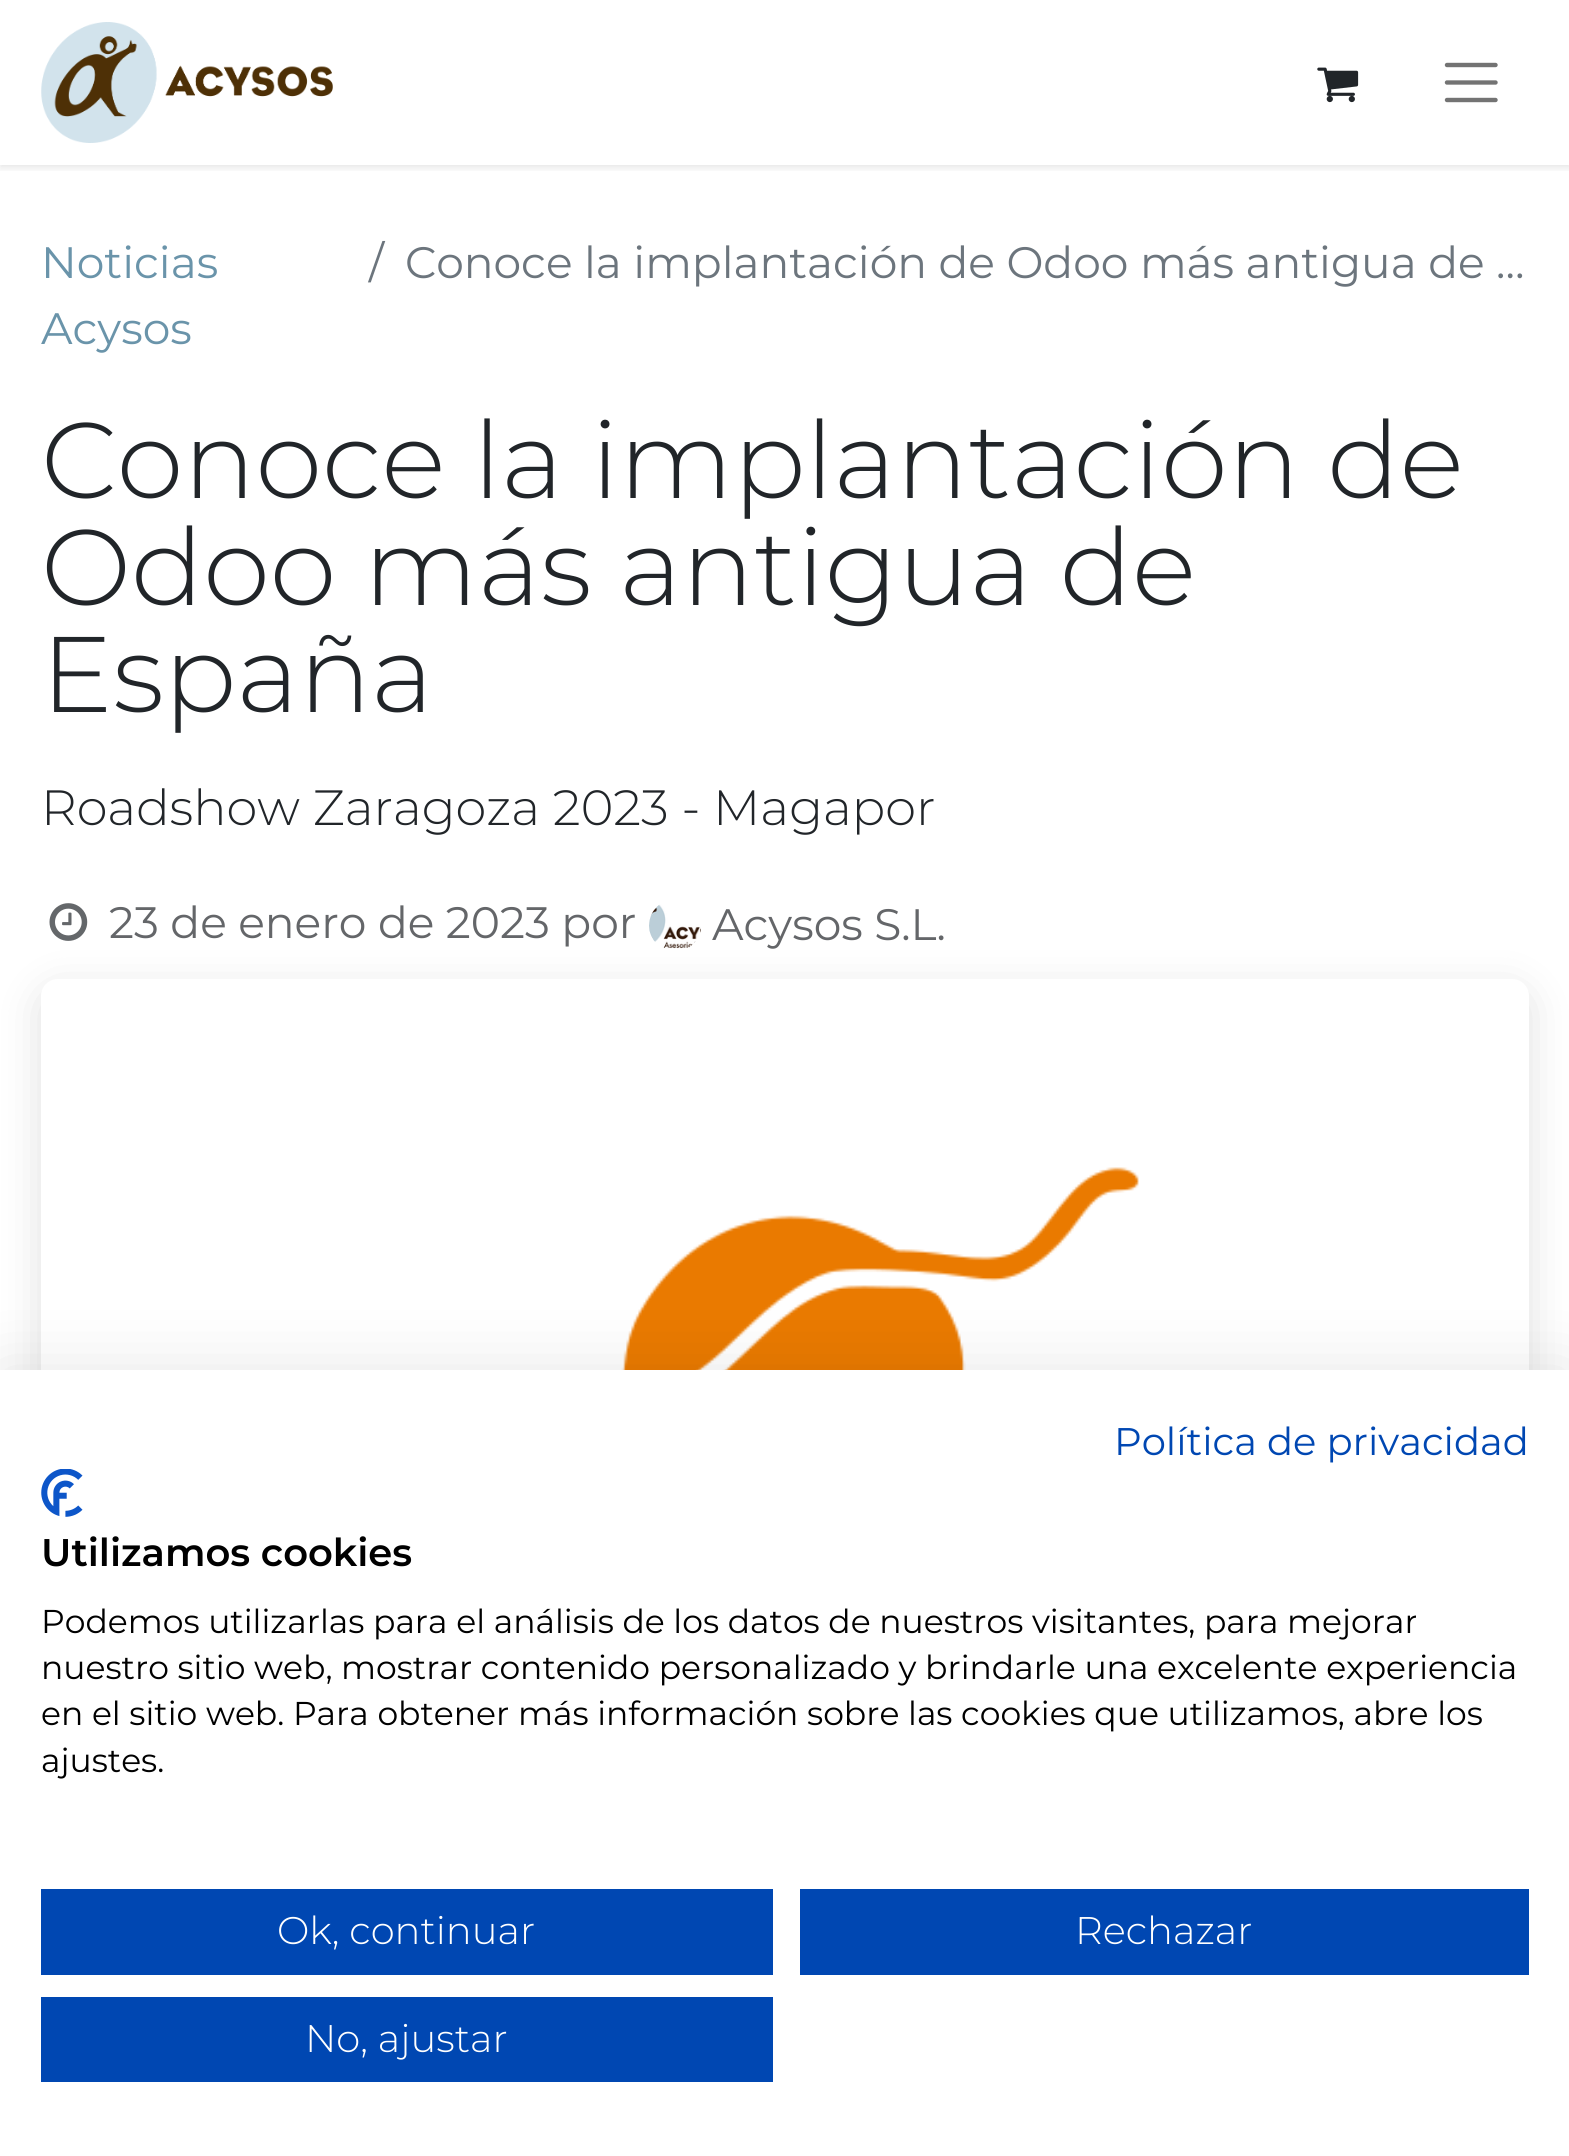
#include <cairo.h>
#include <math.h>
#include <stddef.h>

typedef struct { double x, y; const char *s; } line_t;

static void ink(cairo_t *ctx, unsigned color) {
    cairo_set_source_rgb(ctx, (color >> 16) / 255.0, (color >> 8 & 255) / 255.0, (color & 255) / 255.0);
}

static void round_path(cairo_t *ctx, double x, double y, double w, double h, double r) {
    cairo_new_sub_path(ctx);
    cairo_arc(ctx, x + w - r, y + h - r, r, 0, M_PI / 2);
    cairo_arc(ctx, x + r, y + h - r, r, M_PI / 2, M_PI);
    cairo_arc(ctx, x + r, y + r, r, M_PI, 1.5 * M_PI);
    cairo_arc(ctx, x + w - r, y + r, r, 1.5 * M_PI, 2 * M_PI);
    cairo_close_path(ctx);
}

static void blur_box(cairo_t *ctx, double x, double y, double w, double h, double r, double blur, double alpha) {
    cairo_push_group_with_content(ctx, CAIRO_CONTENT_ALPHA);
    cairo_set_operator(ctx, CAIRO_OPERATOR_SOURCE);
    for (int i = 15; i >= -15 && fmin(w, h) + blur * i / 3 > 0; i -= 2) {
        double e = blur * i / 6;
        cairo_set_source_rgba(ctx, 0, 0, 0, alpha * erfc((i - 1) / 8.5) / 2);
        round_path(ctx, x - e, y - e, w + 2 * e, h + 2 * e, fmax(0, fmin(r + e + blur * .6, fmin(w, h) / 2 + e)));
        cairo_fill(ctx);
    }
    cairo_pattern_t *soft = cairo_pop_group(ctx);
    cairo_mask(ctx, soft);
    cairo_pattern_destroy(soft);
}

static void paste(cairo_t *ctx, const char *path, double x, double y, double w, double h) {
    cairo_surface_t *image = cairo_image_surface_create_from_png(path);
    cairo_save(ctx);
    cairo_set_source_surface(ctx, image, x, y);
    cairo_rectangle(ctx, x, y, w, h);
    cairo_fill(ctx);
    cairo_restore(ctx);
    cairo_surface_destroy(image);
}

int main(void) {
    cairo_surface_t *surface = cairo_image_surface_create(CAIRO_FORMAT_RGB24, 1569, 2156);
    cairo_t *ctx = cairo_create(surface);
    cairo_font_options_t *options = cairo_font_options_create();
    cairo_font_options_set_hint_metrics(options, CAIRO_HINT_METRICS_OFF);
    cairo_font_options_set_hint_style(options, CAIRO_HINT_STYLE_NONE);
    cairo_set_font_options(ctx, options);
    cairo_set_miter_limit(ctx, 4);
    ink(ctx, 0xFFFFFF);
    cairo_paint(ctx);
    cairo_save(ctx);
    cairo_rectangle(ctx, 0, 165, 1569, 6);
    cairo_clip(ctx);
    ink(ctx, 0x000000);
    blur_box(ctx, 0, 3, 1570, 165, 0, 4, 0.1);
    cairo_restore(ctx);
    paste(ctx, "media/1.png", 41, 22, 292, 121);
    paste(ctx, "media/2.png", 1317, 67, 42, 36);
    cairo_new_path(ctx);
    cairo_move_to(ctx, 1447, 65);
    cairo_line_to(ctx, 1495.5, 65);
    cairo_move_to(ctx, 1447, 82.5);
    cairo_line_to(ctx, 1495.5, 82.5);
    cairo_move_to(ctx, 1447, 100);
    cairo_line_to(ctx, 1495.5, 100);
    ink(ctx, 0x737373);
    cairo_set_line_width(ctx, 4.4);
    cairo_set_line_cap(ctx, CAIRO_LINE_CAP_ROUND);
    cairo_stroke(ctx);
    cairo_select_font_face(ctx, "Montserrat", CAIRO_FONT_SLANT_NORMAL, CAIRO_FONT_WEIGHT_NORMAL);
    cairo_set_font_size(ctx, 44);
    ink(ctx, 0x6A94AA);
    cairo_move_to(ctx, 41, 278);
    cairo_show_text(ctx, "Noticias");
    cairo_move_to(ctx, 41, 344);
    cairo_show_text(ctx, "Acysos");
    ink(ctx, 0x6C757D);
    cairo_move_to(ctx, 369, 278);
    cairo_show_text(ctx, "/");
    cairo_move_to(ctx, 405, 278);
    cairo_show_text(ctx, "Conoce la implantación de Odoo más antigua de …");
    cairo_select_font_face(ctx, "Montserrat Light", CAIRO_FONT_SLANT_NORMAL, CAIRO_FONT_WEIGHT_NORMAL);
    cairo_set_font_size(ctx, 107.25);
    ink(ctx, 0x212529);
    {
        static const line_t items[] = {
            {41, 498, "Conoce la implantación de"},
            {41, 605, "Odoo más antigua de"},
            {41, 712, "España"},
        };
        for (size_t i = 0; i < sizeof items / sizeof *items; i++) {
            cairo_move_to(ctx, items[i].x, items[i].y);
            cairo_show_text(ctx, items[i].s);
        }
    }
    cairo_set_font_size(ctx, 49.5);
    cairo_move_to(ctx, 41, 825);
    cairo_show_text(ctx, "Roadshow Zaragoza 2023 - Magapor");
    paste(ctx, "media/3.png", 49, 903, 39, 38);
    cairo_select_font_face(ctx, "Montserrat", CAIRO_FONT_SLANT_NORMAL, CAIRO_FONT_WEIGHT_NORMAL);
    cairo_set_font_size(ctx, 44);
    ink(ctx, 0x646669);
    cairo_move_to(ctx, 109, 938);
    cairo_show_text(ctx, "23 de enero de 2023 por");
    paste(ctx, "media/4.png", 649, 904, 52, 45);
    cairo_move_to(ctx, 712, 940);
    cairo_show_text(ctx, "Acysos S.L.");
    ink(ctx, 0x000000);
    blur_box(ctx, 41, 990, 1488, 864, 17, 22, 0.12);
    ink(ctx, 0xFFFFFF);
    round_path(ctx, 41, 979, 1488, 864, 17);
    cairo_fill(ctx);
    paste(ctx, "media/5.png", 621, 1167, 518, 203);
    ink(ctx, 0x000000);
    blur_box(ctx, 0, 1370, 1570, 786, 0, 33, 0.1);
    ink(ctx, 0xFFFFFF);
    cairo_rectangle(ctx, 0, 1370, 1569, 786);
    cairo_fill(ctx);
    cairo_set_font_size(ctx, 38.5);
    ink(ctx, 0x0047B2);
    cairo_move_to(ctx, 1114, 1455);
    cairo_show_text(ctx, "Política de privacidad");
    paste(ctx, "media/6.png", 41, 1469, 42, 48);
    cairo_select_font_face(ctx, "Montserrat SemiBold", CAIRO_FONT_SLANT_NORMAL, CAIRO_FONT_WEIGHT_NORMAL);
    ink(ctx, 0x000000);
    cairo_move_to(ctx, 41, 1566);
    cairo_show_text(ctx, "Utilizamos cookies");
    cairo_select_font_face(ctx, "Montserrat", CAIRO_FONT_SLANT_NORMAL, CAIRO_FONT_WEIGHT_NORMAL);
    cairo_set_font_size(ctx, 33);
    {
        static const line_t items[] = {
            {41, 1633, "Podemos utilizarlas para el análisis de los datos de nuestros visitantes, para mejorar"},
            {41, 1679, "nuestro sitio web, mostrar contenido personalizado y brindarle una excelente experiencia"},
            {41, 1725, "en el sitio web. Para obtener más información sobre las cookies que utilizamos, abre los"},
            {41, 1772, "ajustes."},
        };
        for (size_t i = 0; i < sizeof items / sizeof *items; i++) {
            cairo_move_to(ctx, items[i].x, items[i].y);
            cairo_show_text(ctx, items[i].s);
        }
    }
    ink(ctx, 0x0047B2);
    cairo_rectangle(ctx, 41, 1889, 732, 86);
    cairo_fill(ctx);
    cairo_select_font_face(ctx, "Montserrat Light", CAIRO_FONT_SLANT_NORMAL, CAIRO_FONT_WEIGHT_NORMAL);
    cairo_set_font_size(ctx, 38.5);
    ink(ctx, 0xFFFFFF);
    cairo_move_to(ctx, 277, 1944);
    cairo_show_text(ctx, "Ok, continuar");
    ink(ctx, 0x0047B2);
    cairo_rectangle(ctx, 800, 1889, 729, 86);
    cairo_fill(ctx);
    ink(ctx, 0xFFFFFF);
    cairo_move_to(ctx, 1075, 1944);
    cairo_show_text(ctx, "Rechazar");
    ink(ctx, 0x0047B2);
    cairo_rectangle(ctx, 41, 1997, 732, 85);
    cairo_fill(ctx);
    ink(ctx, 0xFFFFFF);
    cairo_move_to(ctx, 305, 2052);
    cairo_show_text(ctx, "No, ajustar");
    cairo_surface_write_to_png(surface, "image.png");
    cairo_font_options_destroy(options);
    cairo_destroy(ctx);
    cairo_surface_destroy(surface);
    return 0;
}
